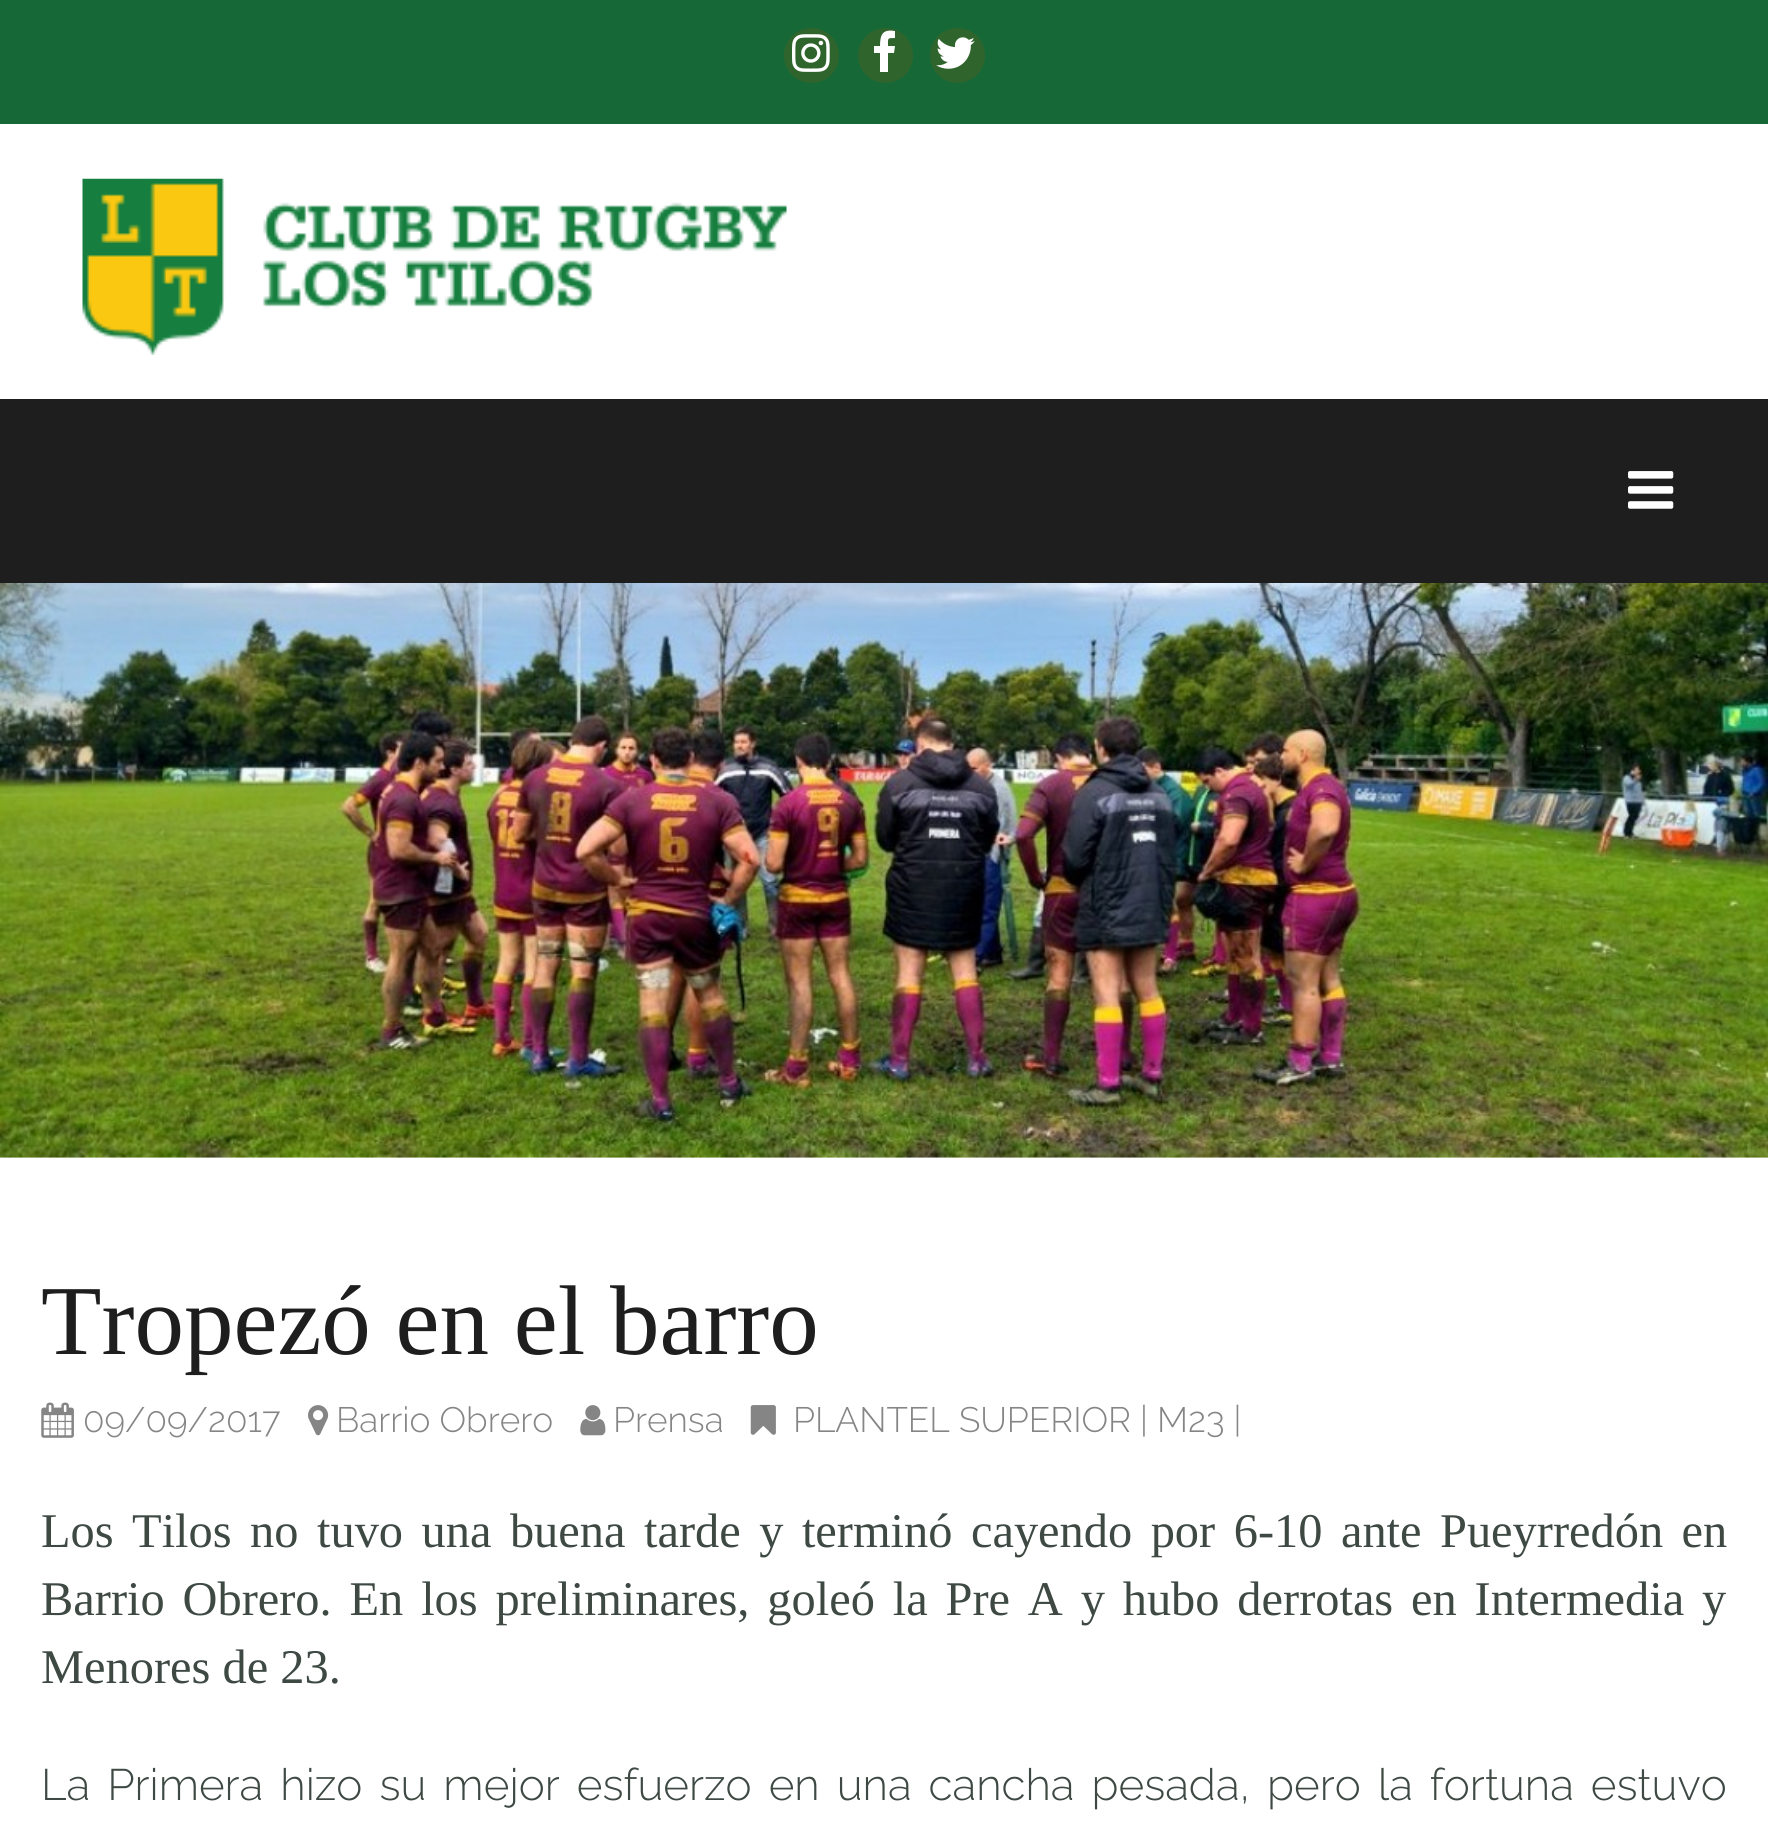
#include <cairo.h>
#include <math.h>
#include <stddef.h>


static void ink(cairo_t *ctx, unsigned color) {
    cairo_set_source_rgb(ctx, (color >> 16) / 255.0, (color >> 8 & 255) / 255.0, (color & 255) / 255.0);
}

static void write_spaced(cairo_t *ctx, double x, double y, const char *s, double letter, double word) {
    cairo_move_to(ctx, x, y);
    while (*s) {
        char ch[5] = {0};
        int n = 0;
        do ch[n++] = *s++; while ((*s & 0xC0) == 0x80);
        cairo_show_text(ctx, ch);
        cairo_rel_move_to(ctx, letter + word * (*ch == ' '), 0);
    }
}

static void paste(cairo_t *ctx, const char *path, double x, double y, double w, double h) {
    cairo_surface_t *image = cairo_image_surface_create_from_png(path);
    cairo_save(ctx);
    cairo_set_source_surface(ctx, image, x, y);
    cairo_rectangle(ctx, x, y, w, h);
    cairo_fill(ctx);
    cairo_restore(ctx);
    cairo_surface_destroy(image);
}

int main(void) {
    cairo_surface_t *surface = cairo_image_surface_create(CAIRO_FORMAT_RGB24, 1768, 1848);
    cairo_t *ctx = cairo_create(surface);
    cairo_font_options_t *options = cairo_font_options_create();
    cairo_font_options_set_hint_metrics(options, CAIRO_HINT_METRICS_OFF);
    cairo_font_options_set_hint_style(options, CAIRO_HINT_STYLE_NONE);
    cairo_set_font_options(ctx, options);
    cairo_set_miter_limit(ctx, 4);
    ink(ctx, 0xFFFFFF);
    cairo_paint(ctx);
    ink(ctx, 0x166936);
    cairo_rectangle(ctx, 0, 0, 1768, 124);
    cairo_fill(ctx);
    ink(ctx, 0x30642D);
    cairo_arc(ctx, 811.5, 55.5, 27.5, 0, 2 * M_PI);
    cairo_fill(ctx);
    paste(ctx, "media/1.png", 792, 34, 38, 38);
    cairo_arc(ctx, 885.5, 55.5, 27.5, 0, 2 * M_PI);
    cairo_fill(ctx);
    ink(ctx, 0xFFFFFF);
    cairo_new_path(ctx);
    cairo_move_to(ctx, 895, 31);
    cairo_curve_to(ctx, 883, 29, 880, 34, 880, 46);
    cairo_line_to(ctx, 874, 46);
    cairo_line_to(ctx, 874, 53);
    cairo_line_to(ctx, 880, 53);
    cairo_line_to(ctx, 880, 72);
    cairo_line_to(ctx, 888, 72);
    cairo_line_to(ctx, 888, 53);
    cairo_line_to(ctx, 894, 53);
    cairo_line_to(ctx, 895, 46);
    cairo_line_to(ctx, 888, 46);
    cairo_curve_to(ctx, 888, 38, 887, 38, 895, 38);
    cairo_close_path(ctx);
    cairo_fill(ctx);
    ink(ctx, 0x30642D);
    cairo_arc(ctx, 957.5, 55.5, 27.5, 0, 2 * M_PI);
    cairo_fill(ctx);
    paste(ctx, "media/2.png", 936, 37, 39, 32);
    paste(ctx, "media/3.png", 82, 178, 705, 177);
    ink(ctx, 0x1F1E1E);
    cairo_rectangle(ctx, 0, 399, 1768, 184);
    cairo_fill(ctx);
    paste(ctx, "media/4.png", 1628, 471, 46, 38);
    paste(ctx, "media/5.png", 0, 583, 1768, 575);
    cairo_select_font_face(ctx, "Liberation Serif", CAIRO_FONT_SLANT_NORMAL, CAIRO_FONT_WEIGHT_NORMAL);
    cairo_set_font_size(ctx, 99);
    cairo_move_to(ctx, 41, 1354);
    cairo_show_text(ctx, "Tropezó en el barro");
    paste(ctx, "media/6.png", 41, 1402, 33, 36);
    cairo_select_font_face(ctx, "Raleway Light", CAIRO_FONT_SLANT_NORMAL, CAIRO_FONT_WEIGHT_NORMAL);
    cairo_set_font_size(ctx, 35.25);
    ink(ctx, 0x868585);
    cairo_move_to(ctx, 83, 1432);
    cairo_show_text(ctx, "09/09/2017");
    paste(ctx, "media/7.png", 308, 1405, 21, 31);
    cairo_move_to(ctx, 336, 1432);
    cairo_show_text(ctx, "Barrio Obrero");
    paste(ctx, "media/8.png", 580, 1405, 26, 31);
    cairo_move_to(ctx, 613, 1432);
    cairo_show_text(ctx, "Prensa");
    paste(ctx, "media/9.png", 750, 1405, 26, 30);
    cairo_move_to(ctx, 793, 1432);
    cairo_show_text(ctx, "PLANTEL SUPERIOR | M23 |");
    cairo_select_font_face(ctx, "Liberation Serif", CAIRO_FONT_SLANT_NORMAL, CAIRO_FONT_WEIGHT_NORMAL);
    cairo_set_font_size(ctx, 48.4);
    ink(ctx, 0x3D4942);
    write_spaced(ctx, 41, 1547, "Los Tilos no tuvo una buena tarde y terminó cayendo por 6-10 ante Pueyrredón en", 0, 6.4);
    write_spaced(ctx, 41, 1615, "Barrio Obrero. En los preliminares, goleó la Pre A y hubo derrotas en Intermedia y", 0, 5.75);
    cairo_move_to(ctx, 41, 1683);
    cairo_show_text(ctx, "Menores de 23.");
    cairo_select_font_face(ctx, "Raleway Light", CAIRO_FONT_SLANT_NORMAL, CAIRO_FONT_WEIGHT_NORMAL);
    cairo_set_font_size(ctx, 44);
    write_spaced(ctx, 41, 1800, "La Primera hizo su mejor esfuerzo en una cancha pesada, pero la fortuna estuvo", 0, 5.75);
    cairo_surface_write_to_png(surface, "image.png");
    cairo_font_options_destroy(options);
    cairo_destroy(ctx);
    cairo_surface_destroy(surface);
    return 0;
}
